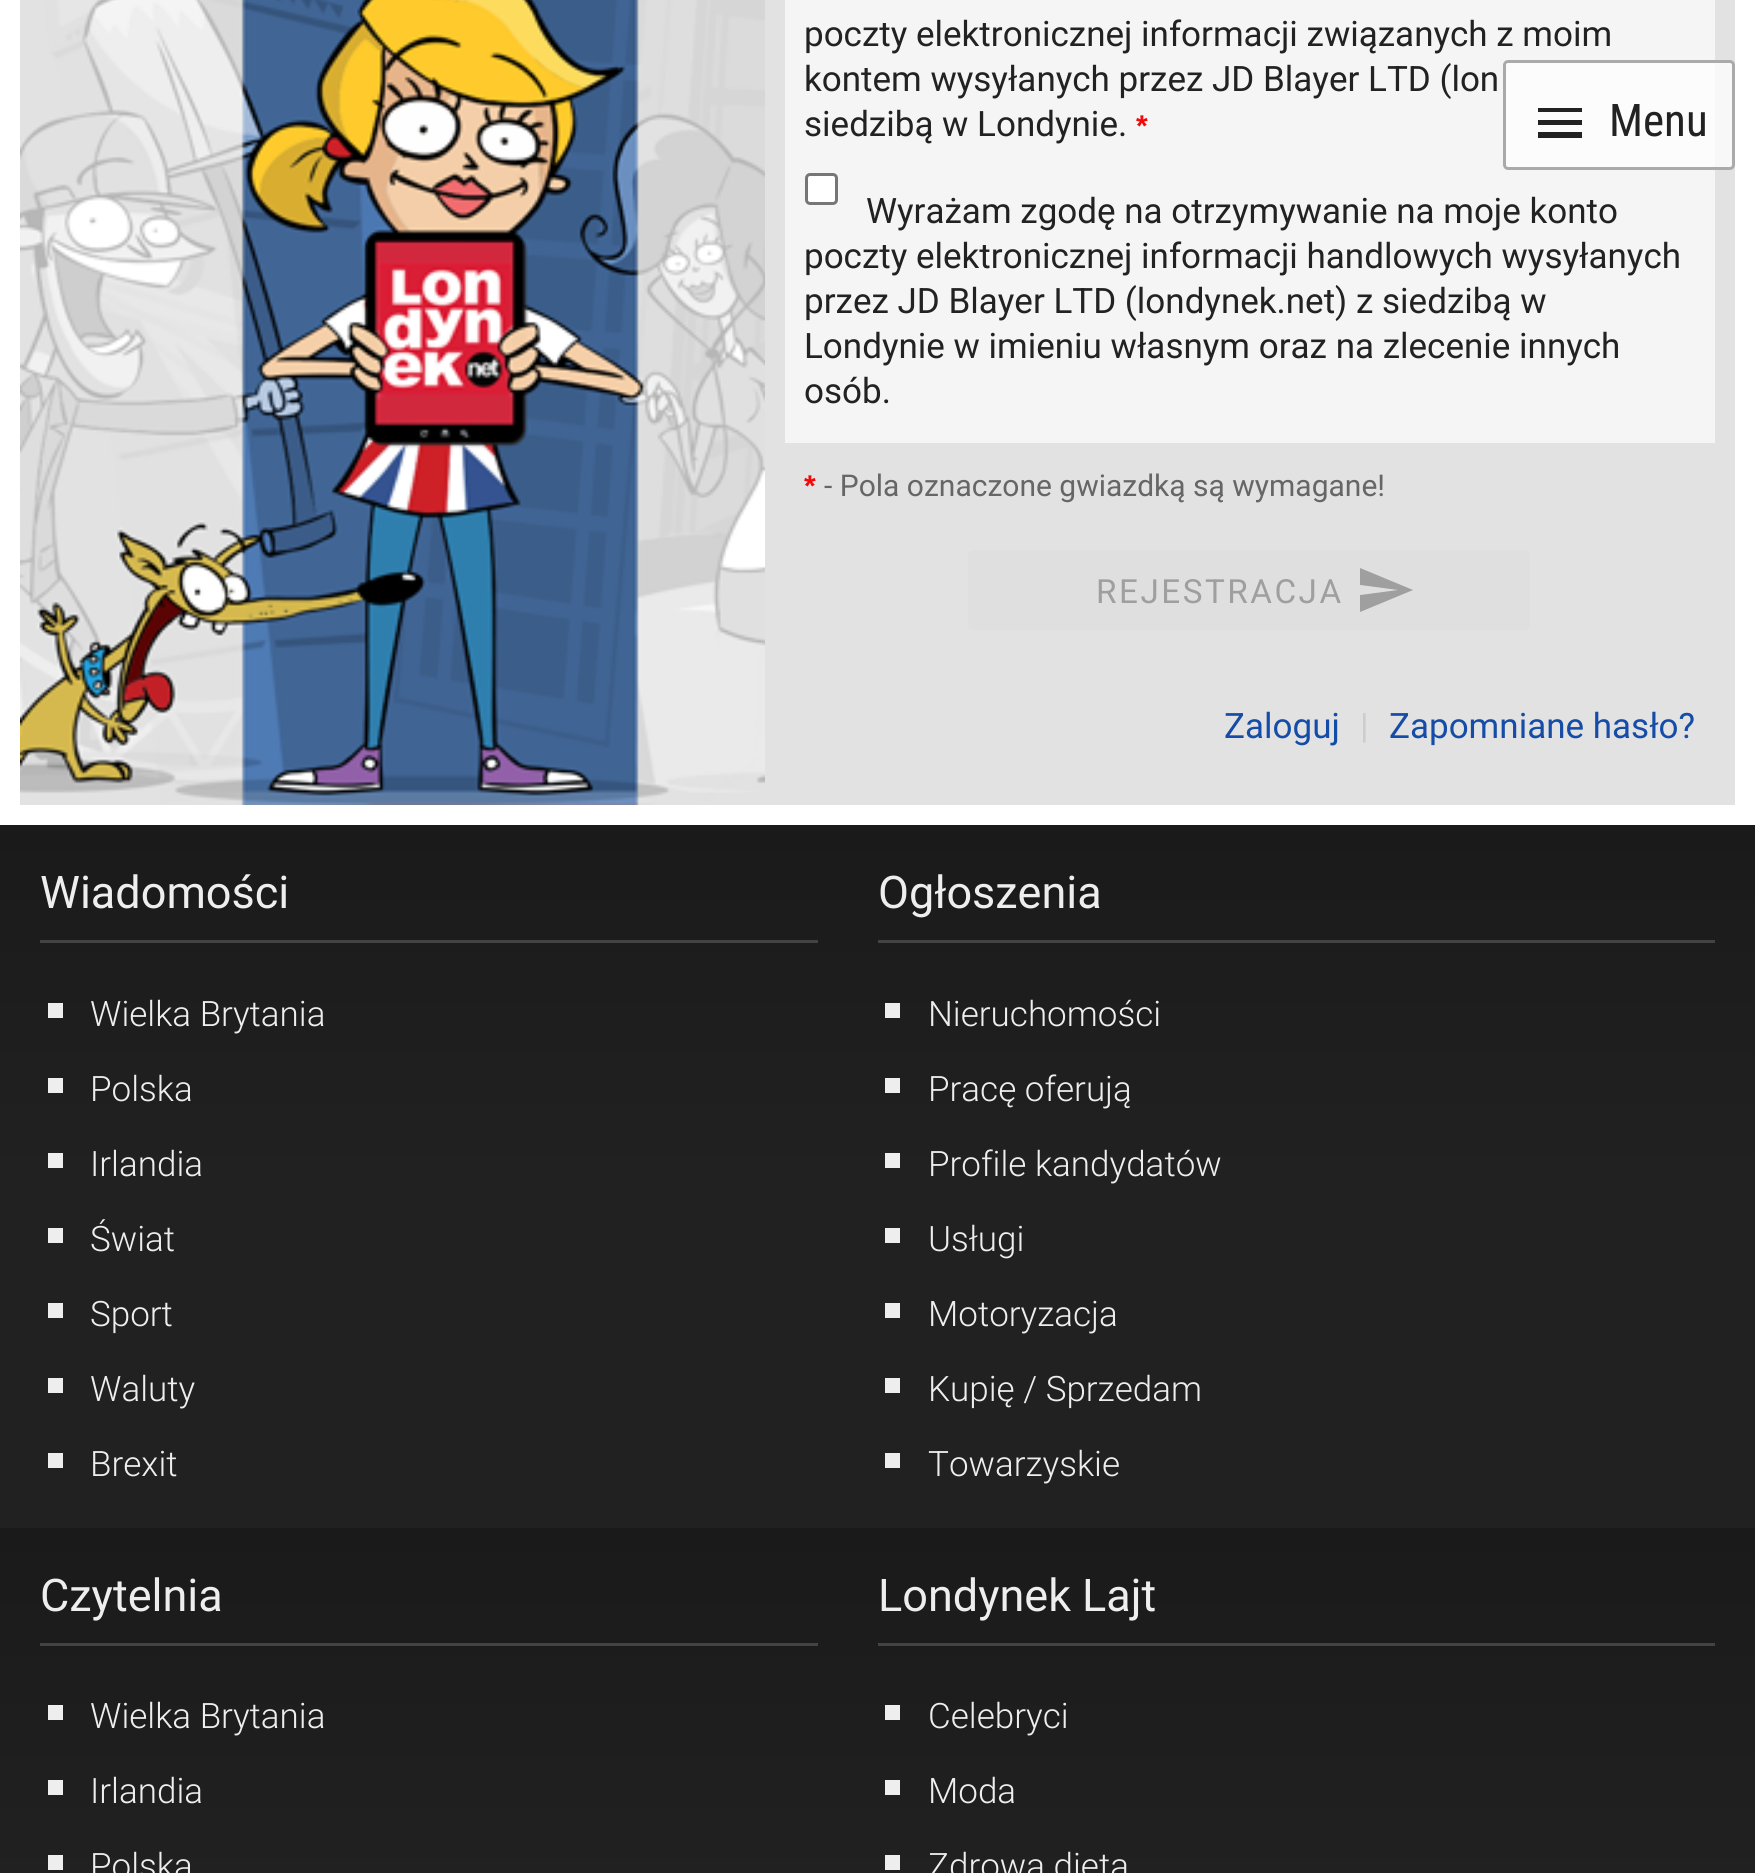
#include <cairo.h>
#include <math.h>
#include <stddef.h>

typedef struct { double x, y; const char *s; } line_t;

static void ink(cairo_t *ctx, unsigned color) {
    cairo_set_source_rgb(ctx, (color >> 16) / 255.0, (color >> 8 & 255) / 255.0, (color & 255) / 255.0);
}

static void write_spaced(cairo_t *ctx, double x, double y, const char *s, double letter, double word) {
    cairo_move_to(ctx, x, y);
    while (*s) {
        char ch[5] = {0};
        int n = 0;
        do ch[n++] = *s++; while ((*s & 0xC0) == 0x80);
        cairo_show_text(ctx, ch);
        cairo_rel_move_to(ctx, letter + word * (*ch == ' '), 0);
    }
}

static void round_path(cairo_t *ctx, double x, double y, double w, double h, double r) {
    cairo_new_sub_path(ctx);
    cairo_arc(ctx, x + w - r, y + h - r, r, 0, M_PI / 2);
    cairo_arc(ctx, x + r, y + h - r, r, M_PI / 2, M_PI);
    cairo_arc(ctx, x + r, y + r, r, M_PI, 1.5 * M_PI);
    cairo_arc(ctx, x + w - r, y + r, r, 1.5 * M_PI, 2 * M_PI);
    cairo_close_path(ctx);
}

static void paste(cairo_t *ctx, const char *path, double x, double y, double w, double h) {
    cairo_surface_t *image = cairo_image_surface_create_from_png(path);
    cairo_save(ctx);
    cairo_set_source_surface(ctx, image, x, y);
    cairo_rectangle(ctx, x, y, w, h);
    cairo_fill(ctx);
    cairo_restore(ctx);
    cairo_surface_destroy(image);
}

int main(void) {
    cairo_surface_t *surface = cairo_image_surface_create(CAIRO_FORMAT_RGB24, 1755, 1873);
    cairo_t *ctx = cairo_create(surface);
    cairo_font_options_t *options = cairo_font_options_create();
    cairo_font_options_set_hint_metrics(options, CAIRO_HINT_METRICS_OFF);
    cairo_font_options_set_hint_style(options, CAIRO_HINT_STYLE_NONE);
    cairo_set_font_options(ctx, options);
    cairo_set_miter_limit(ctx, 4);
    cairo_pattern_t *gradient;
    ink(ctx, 0xFFFFFF);
    cairo_paint(ctx);
    ink(ctx, 0xE2E2E2);
    cairo_rectangle(ctx, 765, 0, 970, 805);
    cairo_fill(ctx);
    paste(ctx, "media/1.png", 20, 0, 745, 805);
    ink(ctx, 0xF5F5F5);
    cairo_rectangle(ctx, 785, 0, 930, 443);
    cairo_fill(ctx);
    cairo_select_font_face(ctx, "Roboto", CAIRO_FONT_SLANT_NORMAL, CAIRO_FONT_WEIGHT_NORMAL);
    cairo_set_font_size(ctx, 35);
    ink(ctx, 0x222222);
    {
        static const line_t items[] = {
            {804, 46, "poczty elektronicznej informacji związanych z moim"},
            {804, 91, "kontem wysyłanych przez JD Blayer LTD (lon"},
            {804, 136, "siedzibą w Londynie."},
        };
        for (size_t i = 0; i < sizeof items / sizeof *items; i++) {
            cairo_move_to(ctx, items[i].x, items[i].y);
            cairo_show_text(ctx, items[i].s);
        }
    }
    cairo_select_font_face(ctx, "Liberation Sans", CAIRO_FONT_SLANT_NORMAL, CAIRO_FONT_WEIGHT_BOLD);
    cairo_set_font_size(ctx, 30);
    ink(ctx, 0xF50808);
    cairo_move_to(ctx, 1136, 136);
    cairo_show_text(ctx, "*");
    ink(ctx, 0xFFFFFF);
    round_path(ctx, 806.5, 174.5, 30, 29, 3.5);
    cairo_fill_preserve(ctx);
    ink(ctx, 0x767676);
    cairo_set_line_width(ctx, 3);
    cairo_stroke(ctx);
    cairo_select_font_face(ctx, "Roboto", CAIRO_FONT_SLANT_NORMAL, CAIRO_FONT_WEIGHT_NORMAL);
    cairo_set_font_size(ctx, 35);
    ink(ctx, 0x222222);
    {
        static const line_t items[] = {
            {866, 223, "Wyrażam zgodę na otrzymywanie na moje konto"},
            {804, 268, "poczty elektronicznej informacji handlowych wysyłanych"},
            {804, 313, "przez JD Blayer LTD (londynek.net) z siedzibą w"},
            {804, 358, "Londynie w imieniu własnym oraz na zlecenie innych"},
            {804, 403, "osób."},
        };
        for (size_t i = 0; i < sizeof items / sizeof *items; i++) {
            cairo_move_to(ctx, items[i].x, items[i].y);
            cairo_show_text(ctx, items[i].s);
        }
    }
    cairo_select_font_face(ctx, "Liberation Sans", CAIRO_FONT_SLANT_NORMAL, CAIRO_FONT_WEIGHT_BOLD);
    cairo_set_font_size(ctx, 30);
    ink(ctx, 0xF50808);
    cairo_move_to(ctx, 804, 496);
    cairo_show_text(ctx, "*");
    cairo_select_font_face(ctx, "Roboto", CAIRO_FONT_SLANT_NORMAL, CAIRO_FONT_WEIGHT_NORMAL);
    ink(ctx, 0x666666);
    cairo_move_to(ctx, 824, 496);
    cairo_show_text(ctx, "- Pola oznaczone gwiazdką są wymagane!");
    ink(ctx, 0xDFDFDF);
    round_path(ctx, 968, 550, 562, 80, 5);
    cairo_fill(ctx);
    cairo_set_font_size(ctx, 33.25);
    ink(ctx, 0x9F9F9F);
    write_spaced(ctx, 1096, 603, "REJESTRACJA", 2.5, 0);
    cairo_new_path(ctx);
    cairo_move_to(ctx, 1360, 612);
    cairo_line_to(ctx, 1360, 595);
    cairo_line_to(ctx, 1398, 590);
    cairo_line_to(ctx, 1360, 585);
    cairo_line_to(ctx, 1360, 568);
    cairo_line_to(ctx, 1413, 590);
    cairo_close_path(ctx);
    cairo_fill(ctx);
    cairo_set_font_size(ctx, 35);
    ink(ctx, 0x154CA7);
    cairo_move_to(ctx, 1224, 738);
    cairo_show_text(ctx, "Zaloguj");
    ink(ctx, 0xCCCCCC);
    cairo_move_to(ctx, 1360, 738);
    cairo_show_text(ctx, "|");
    ink(ctx, 0x154CA7);
    cairo_move_to(ctx, 1389, 738);
    cairo_show_text(ctx, "Zapomniane hasło?");
    cairo_set_source_rgba(ctx, 1, 1, 1, 0.75);
    round_path(ctx, 1504.5, 61.5, 229, 107, 3.5);
    cairo_fill_preserve(ctx);
    ink(ctx, 0xAAAAAA);
    cairo_stroke(ctx);
    ink(ctx, 0x222222);
    cairo_new_path(ctx);
    cairo_move_to(ctx, 1538, 108);
    cairo_line_to(ctx, 1582, 108);
    cairo_line_to(ctx, 1582, 112);
    cairo_line_to(ctx, 1538, 112);
    cairo_close_path(ctx);
    cairo_move_to(ctx, 1538, 120);
    cairo_line_to(ctx, 1582, 120);
    cairo_line_to(ctx, 1582, 125);
    cairo_line_to(ctx, 1538, 125);
    cairo_close_path(ctx);
    cairo_move_to(ctx, 1538, 132);
    cairo_line_to(ctx, 1582, 132);
    cairo_line_to(ctx, 1582, 138);
    cairo_line_to(ctx, 1538, 138);
    cairo_close_path(ctx);
    cairo_fill(ctx);
    cairo_select_font_face(ctx, "Roboto Condensed", CAIRO_FONT_SLANT_NORMAL, CAIRO_FONT_WEIGHT_NORMAL);
    cairo_set_font_size(ctx, 45);
    cairo_move_to(ctx, 1609, 136);
    cairo_show_text(ctx, "Menu");
    ink(ctx, 0x212121);
    cairo_rectangle(ctx, 0, 1175, 1755, 353);
    cairo_fill(ctx);
    gradient = cairo_pattern_create_linear(419, 825, 419, 1175);
    cairo_pattern_add_color_stop_rgba(gradient, 0, 0.102, 0.102, 0.102, 1);
    cairo_pattern_add_color_stop_rgba(gradient, 1, 0.129, 0.129, 0.129, 1);
    cairo_set_source(ctx, gradient);
    cairo_pattern_destroy(gradient);
    cairo_rectangle(ctx, 0, 825, 838, 350);
    cairo_fill(ctx);
    cairo_select_font_face(ctx, "Roboto", CAIRO_FONT_SLANT_NORMAL, CAIRO_FONT_WEIGHT_NORMAL);
    ink(ctx, 0xEEEEEE);
    cairo_move_to(ctx, 40, 908);
    cairo_show_text(ctx, "Wiadomości");
    ink(ctx, 0x434343);
    cairo_rectangle(ctx, 40, 940, 778, 3);
    cairo_fill(ctx);
    ink(ctx, 0xEEEEEE);
    cairo_rectangle(ctx, 48, 1003, 15, 15);
    cairo_fill(ctx);
    cairo_select_font_face(ctx, "Roboto Light", CAIRO_FONT_SLANT_NORMAL, CAIRO_FONT_WEIGHT_NORMAL);
    cairo_set_font_size(ctx, 35);
    cairo_move_to(ctx, 90, 1026);
    cairo_show_text(ctx, "Wielka Brytania");
    cairo_rectangle(ctx, 48, 1078, 15, 15);
    cairo_fill(ctx);
    cairo_move_to(ctx, 90, 1101);
    cairo_show_text(ctx, "Polska");
    cairo_rectangle(ctx, 48, 1153, 15, 15);
    cairo_fill(ctx);
    cairo_move_to(ctx, 90, 1176);
    cairo_show_text(ctx, "Irlandia");
    cairo_rectangle(ctx, 48, 1228, 15, 15);
    cairo_fill(ctx);
    cairo_move_to(ctx, 90, 1251);
    cairo_show_text(ctx, "Świat");
    cairo_rectangle(ctx, 48, 1303, 15, 15);
    cairo_fill(ctx);
    cairo_move_to(ctx, 90, 1326);
    cairo_show_text(ctx, "Sport");
    cairo_rectangle(ctx, 48, 1378, 15, 15);
    cairo_fill(ctx);
    cairo_move_to(ctx, 90, 1401);
    cairo_show_text(ctx, "Waluty");
    cairo_rectangle(ctx, 48, 1453, 15, 15);
    cairo_fill(ctx);
    cairo_move_to(ctx, 90, 1476);
    cairo_show_text(ctx, "Brexit");
    gradient = cairo_pattern_create_linear(1296, 825, 1296, 1175);
    cairo_pattern_add_color_stop_rgba(gradient, 0, 0.102, 0.102, 0.102, 1);
    cairo_pattern_add_color_stop_rgba(gradient, 1, 0.129, 0.129, 0.129, 1);
    cairo_set_source(ctx, gradient);
    cairo_pattern_destroy(gradient);
    cairo_rectangle(ctx, 838, 825, 917, 350);
    cairo_fill(ctx);
    cairo_select_font_face(ctx, "Roboto", CAIRO_FONT_SLANT_NORMAL, CAIRO_FONT_WEIGHT_NORMAL);
    cairo_set_font_size(ctx, 45);
    ink(ctx, 0xEEEEEE);
    cairo_move_to(ctx, 878, 908);
    cairo_show_text(ctx, "Ogłoszenia");
    ink(ctx, 0x434343);
    cairo_rectangle(ctx, 878, 940, 837, 3);
    cairo_fill(ctx);
    ink(ctx, 0xEEEEEE);
    cairo_rectangle(ctx, 885, 1003, 15, 15);
    cairo_fill(ctx);
    cairo_select_font_face(ctx, "Roboto Light", CAIRO_FONT_SLANT_NORMAL, CAIRO_FONT_WEIGHT_NORMAL);
    cairo_set_font_size(ctx, 35);
    cairo_move_to(ctx, 928, 1026);
    cairo_show_text(ctx, "Nieruchomości");
    cairo_rectangle(ctx, 885, 1078, 15, 15);
    cairo_fill(ctx);
    cairo_move_to(ctx, 928, 1101);
    cairo_show_text(ctx, "Pracę oferują");
    cairo_rectangle(ctx, 885, 1153, 15, 15);
    cairo_fill(ctx);
    cairo_move_to(ctx, 928, 1176);
    cairo_show_text(ctx, "Profile kandydatów");
    cairo_rectangle(ctx, 885, 1228, 15, 15);
    cairo_fill(ctx);
    cairo_move_to(ctx, 928, 1251);
    cairo_show_text(ctx, "Usługi");
    cairo_rectangle(ctx, 885, 1303, 15, 15);
    cairo_fill(ctx);
    cairo_move_to(ctx, 928, 1326);
    cairo_show_text(ctx, "Motoryzacja");
    cairo_rectangle(ctx, 885, 1378, 15, 15);
    cairo_fill(ctx);
    cairo_move_to(ctx, 928, 1401);
    cairo_show_text(ctx, "Kupię / Sprzedam");
    cairo_rectangle(ctx, 885, 1453, 15, 15);
    cairo_fill(ctx);
    cairo_move_to(ctx, 928, 1476);
    cairo_show_text(ctx, "Towarzyskie");
    gradient = cairo_pattern_create_linear(419, 1528, 419, 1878);
    cairo_pattern_add_color_stop_rgba(gradient, 0, 0.102, 0.102, 0.102, 1);
    cairo_pattern_add_color_stop_rgba(gradient, 1, 0.129, 0.129, 0.129, 1);
    cairo_set_source(ctx, gradient);
    cairo_pattern_destroy(gradient);
    cairo_rectangle(ctx, 0, 1528, 838, 345);
    cairo_fill(ctx);
    cairo_select_font_face(ctx, "Roboto", CAIRO_FONT_SLANT_NORMAL, CAIRO_FONT_WEIGHT_NORMAL);
    cairo_set_font_size(ctx, 45);
    ink(ctx, 0xEEEEEE);
    cairo_move_to(ctx, 40, 1611);
    cairo_show_text(ctx, "Czytelnia");
    ink(ctx, 0x434343);
    cairo_rectangle(ctx, 40, 1643, 778, 3);
    cairo_fill(ctx);
    ink(ctx, 0xEEEEEE);
    cairo_rectangle(ctx, 48, 1705, 15, 15);
    cairo_fill(ctx);
    cairo_select_font_face(ctx, "Roboto Light", CAIRO_FONT_SLANT_NORMAL, CAIRO_FONT_WEIGHT_NORMAL);
    cairo_set_font_size(ctx, 35);
    cairo_move_to(ctx, 90, 1728);
    cairo_show_text(ctx, "Wielka Brytania");
    cairo_rectangle(ctx, 48, 1780, 15, 15);
    cairo_fill(ctx);
    cairo_move_to(ctx, 90, 1803);
    cairo_show_text(ctx, "Irlandia");
    cairo_rectangle(ctx, 48, 1855, 15, 15);
    cairo_fill(ctx);
    cairo_move_to(ctx, 90, 1878);
    cairo_show_text(ctx, "Polska");
    gradient = cairo_pattern_create_linear(1296, 1528, 1296, 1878);
    cairo_pattern_add_color_stop_rgba(gradient, 0, 0.102, 0.102, 0.102, 1);
    cairo_pattern_add_color_stop_rgba(gradient, 1, 0.129, 0.129, 0.129, 1);
    cairo_set_source(ctx, gradient);
    cairo_pattern_destroy(gradient);
    cairo_rectangle(ctx, 838, 1528, 917, 345);
    cairo_fill(ctx);
    cairo_select_font_face(ctx, "Roboto", CAIRO_FONT_SLANT_NORMAL, CAIRO_FONT_WEIGHT_NORMAL);
    cairo_set_font_size(ctx, 45);
    ink(ctx, 0xEEEEEE);
    cairo_move_to(ctx, 878, 1611);
    cairo_show_text(ctx, "Londynek Lajt");
    ink(ctx, 0x434343);
    cairo_rectangle(ctx, 878, 1643, 837, 3);
    cairo_fill(ctx);
    ink(ctx, 0xEEEEEE);
    cairo_rectangle(ctx, 885, 1705, 15, 15);
    cairo_fill(ctx);
    cairo_select_font_face(ctx, "Roboto Light", CAIRO_FONT_SLANT_NORMAL, CAIRO_FONT_WEIGHT_NORMAL);
    cairo_set_font_size(ctx, 35);
    cairo_move_to(ctx, 928, 1728);
    cairo_show_text(ctx, "Celebryci");
    cairo_rectangle(ctx, 885, 1780, 15, 15);
    cairo_fill(ctx);
    cairo_move_to(ctx, 928, 1803);
    cairo_show_text(ctx, "Moda");
    cairo_rectangle(ctx, 885, 1855, 15, 15);
    cairo_fill(ctx);
    cairo_move_to(ctx, 928, 1878);
    cairo_show_text(ctx, "Zdrowa dieta");
    cairo_surface_write_to_png(surface, "image.png");
    cairo_font_options_destroy(options);
    cairo_destroy(ctx);
    cairo_surface_destroy(surface);
    return 0;
}
